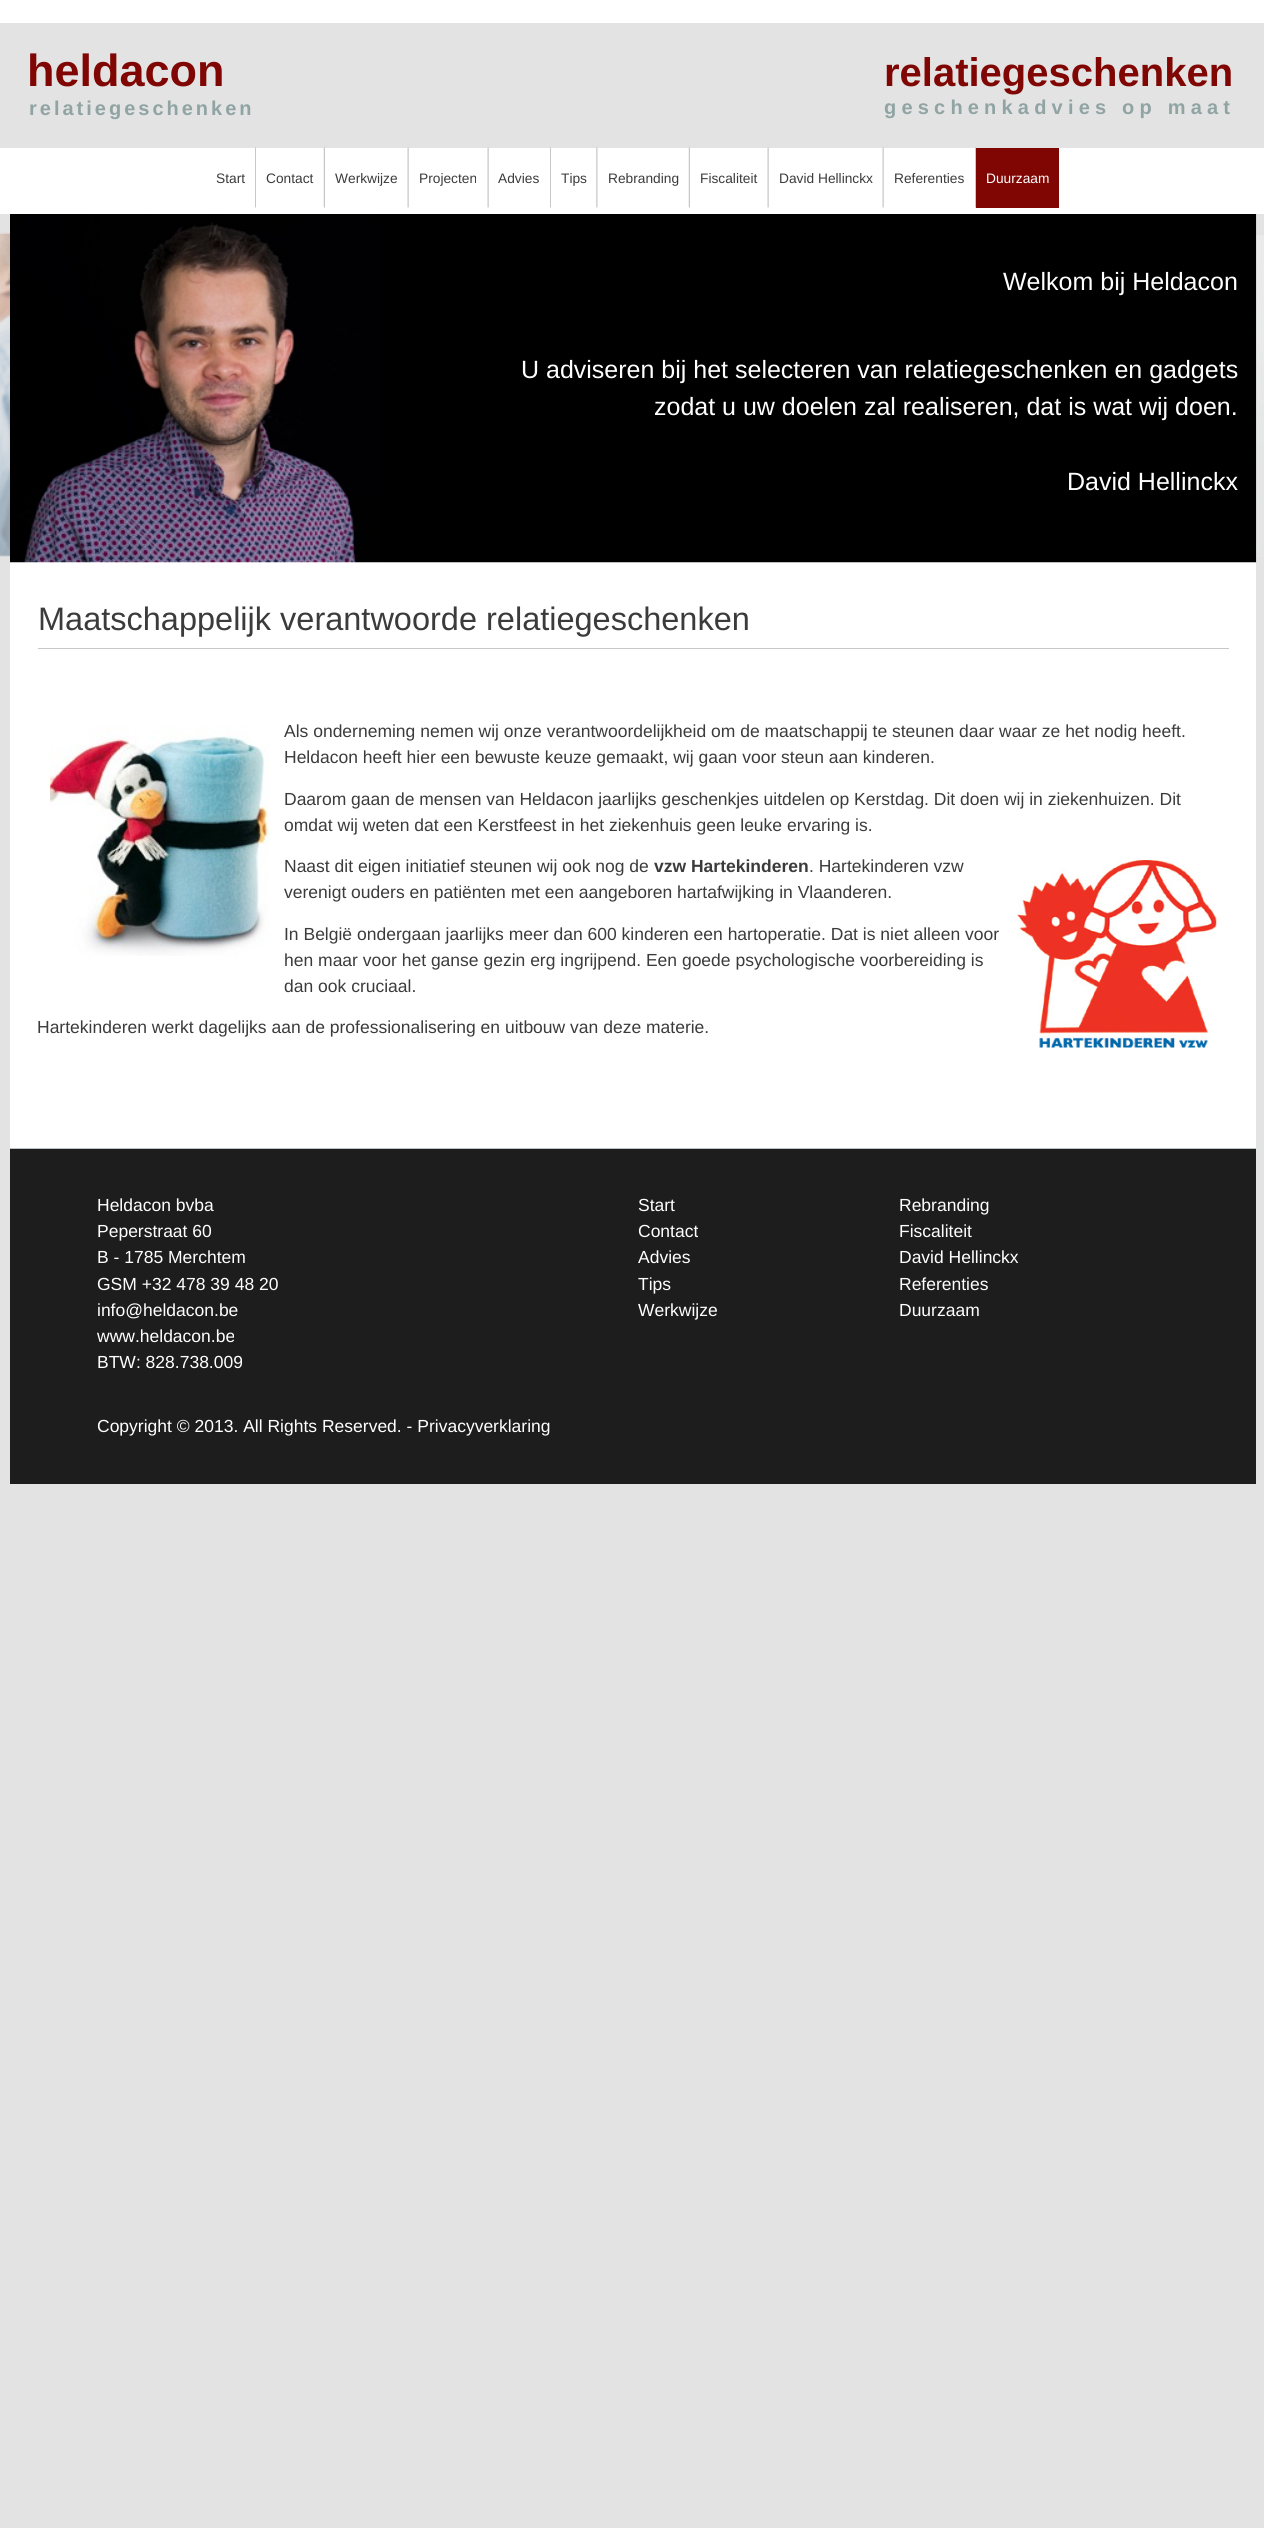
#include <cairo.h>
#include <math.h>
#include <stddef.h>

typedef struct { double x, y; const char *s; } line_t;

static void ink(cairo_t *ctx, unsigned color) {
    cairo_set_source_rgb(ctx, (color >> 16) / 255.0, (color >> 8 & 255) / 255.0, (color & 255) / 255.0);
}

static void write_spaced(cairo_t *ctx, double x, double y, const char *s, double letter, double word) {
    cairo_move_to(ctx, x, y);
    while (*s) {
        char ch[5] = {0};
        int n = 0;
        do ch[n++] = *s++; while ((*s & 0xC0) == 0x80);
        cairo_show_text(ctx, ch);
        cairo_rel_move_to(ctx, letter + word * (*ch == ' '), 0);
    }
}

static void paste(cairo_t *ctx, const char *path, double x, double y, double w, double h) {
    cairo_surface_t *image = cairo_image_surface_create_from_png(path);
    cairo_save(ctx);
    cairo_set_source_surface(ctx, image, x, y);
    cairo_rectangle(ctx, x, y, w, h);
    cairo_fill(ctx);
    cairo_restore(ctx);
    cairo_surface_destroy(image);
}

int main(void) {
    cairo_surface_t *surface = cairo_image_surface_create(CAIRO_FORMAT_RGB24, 1264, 2528);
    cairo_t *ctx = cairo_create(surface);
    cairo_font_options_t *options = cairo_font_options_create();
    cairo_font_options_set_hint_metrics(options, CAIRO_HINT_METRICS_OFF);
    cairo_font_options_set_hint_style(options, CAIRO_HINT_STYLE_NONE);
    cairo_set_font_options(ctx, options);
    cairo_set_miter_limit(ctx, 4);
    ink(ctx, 0xFFFFFF);
    cairo_paint(ctx);
    ink(ctx, 0xE3E3E3);
    cairo_rectangle(ctx, 0, 23, 1264, 2505);
    cairo_fill(ctx);
    paste(ctx, "media/1.png", 0, 232, 1264, 325);
    cairo_select_font_face(ctx, "Liberation Sans", CAIRO_FONT_SLANT_NORMAL, CAIRO_FONT_WEIGHT_BOLD);
    cairo_set_font_size(ctx, 45);
    ink(ctx, 0x800603);
    cairo_move_to(ctx, 27, 86);
    cairo_show_text(ctx, "heldacon");
    cairo_set_font_size(ctx, 20);
    ink(ctx, 0x90A4A3);
    write_spaced(ctx, 29, 115, "relatiegeschenken", 3, 0);
    cairo_set_font_size(ctx, 40);
    ink(ctx, 0x800603);
    cairo_move_to(ctx, 884, 86);
    cairo_show_text(ctx, "relatiegeschenken");
    cairo_set_font_size(ctx, 20);
    ink(ctx, 0x90A4A3);
    write_spaced(ctx, 884, 114, "geschenkadvies op maat", 5.2, 0);
    ink(ctx, 0xFFFFFF);
    cairo_rectangle(ctx, 0, 148, 1264, 66);
    cairo_fill(ctx);
    cairo_select_font_face(ctx, "Liberation Sans", CAIRO_FONT_SLANT_NORMAL, CAIRO_FONT_WEIGHT_NORMAL);
    cairo_set_font_size(ctx, 13.75);
    ink(ctx, 0x3B3B3B);
    cairo_move_to(ctx, 216, 183);
    cairo_show_text(ctx, "Start");
    paste(ctx, "media/2.png", 255, 147, 2, 61);
    ink(ctx, 0xFFFFFF);
    cairo_rectangle(ctx, 256, 148, 1, 60);
    cairo_fill(ctx);
    ink(ctx, 0x3B3B3B);
    cairo_move_to(ctx, 266, 183);
    cairo_show_text(ctx, "Contact");
    paste(ctx, "media/3.png", 323, 147, 2, 61);
    cairo_move_to(ctx, 335, 183);
    cairo_show_text(ctx, "Werkwijze");
    paste(ctx, "media/4.png", 407, 147, 2, 61);
    cairo_move_to(ctx, 419, 183);
    cairo_show_text(ctx, "Projecten");
    paste(ctx, "media/4.png", 487, 147, 2, 61);
    cairo_move_to(ctx, 498, 183);
    cairo_show_text(ctx, "Advies");
    paste(ctx, "media/2.png", 550, 147, 2, 61);
    ink(ctx, 0xFFFFFF);
    cairo_rectangle(ctx, 551, 148, 1, 60);
    cairo_fill(ctx);
    ink(ctx, 0x3B3B3B);
    cairo_move_to(ctx, 561, 183);
    cairo_show_text(ctx, "Tips");
    paste(ctx, "media/5.png", 596, 147, 2, 61);
    cairo_move_to(ctx, 608, 183);
    cairo_show_text(ctx, "Rebranding");
    paste(ctx, "media/3.png", 688, 147, 2, 61);
    cairo_move_to(ctx, 700, 183);
    cairo_show_text(ctx, "Fiscaliteit");
    paste(ctx, "media/4.png", 767, 147, 2, 61);
    cairo_move_to(ctx, 779, 183);
    cairo_show_text(ctx, "David Hellinckx");
    paste(ctx, "media/4.png", 882, 147, 2, 61);
    cairo_move_to(ctx, 894, 183);
    cairo_show_text(ctx, "Referenties");
    paste(ctx, "media/2.png", 975, 147, 2, 61);
    ink(ctx, 0x800603);
    cairo_rectangle(ctx, 976, 148, 83, 60);
    cairo_fill(ctx);
    ink(ctx, 0xFFFFFF);
    cairo_move_to(ctx, 986, 183);
    cairo_show_text(ctx, "Duurzaam");
    cairo_rectangle(ctx, 10, 562, 1246, 586);
    cairo_fill(ctx);
    paste(ctx, "media/6.png", 10, 214, 1247, 349);
    cairo_set_font_size(ctx, 25);
    {
        static const line_t items[] = {
            {1003, 290, "Welkom bij Heldacon"},
            {521, 378, "U adviseren bij het selecteren van relatiegeschenken en gadgets"},
            {654, 415, "zodat u uw doelen zal realiseren, dat is wat wij doen."},
            {1067, 490, "David Hellinckx"},
        };
        for (size_t i = 0; i < sizeof items / sizeof *items; i++) {
            cairo_move_to(ctx, items[i].x, items[i].y);
            cairo_show_text(ctx, items[i].s);
        }
    }
    ink(ctx, 0xC7C7C7);
    cairo_rectangle(ctx, 38, 648, 1191, 1);
    cairo_fill(ctx);
    cairo_set_font_size(ctx, 32.5);
    ink(ctx, 0x3B3B3B);
    cairo_move_to(ctx, 38, 630);
    cairo_show_text(ctx, "Maatschappelijk verantwoorde relatiegeschenken");
    paste(ctx, "media/7.png", 50, 725, 220, 231);
    cairo_set_font_size(ctx, 17.5);
    {
        static const line_t items[] = {
            {284, 737, "Als onderneming nemen wij onze verantwoordelijkheid om de maatschappij te steunen daar waar ze het nodig heeft."},
            {284, 763, "Heldacon heeft hier een bewuste keuze gemaakt, wij gaan voor steun aan kinderen."},
            {284, 805, "Daarom gaan de mensen van Heldacon jaarlijks geschenkjes uitdelen op Kerstdag. Dit doen wij in ziekenhuizen. Dit"},
            {284, 831, "omdat wij weten dat een Kerstfeest in het ziekenhuis geen leuke ervaring is."},
            {284, 872, "Naast dit eigen initiatief steunen wij ook nog de"},
        };
        for (size_t i = 0; i < sizeof items / sizeof *items; i++) {
            cairo_move_to(ctx, items[i].x, items[i].y);
            cairo_show_text(ctx, items[i].s);
        }
    }
    cairo_select_font_face(ctx, "Liberation Sans", CAIRO_FONT_SLANT_NORMAL, CAIRO_FONT_WEIGHT_BOLD);
    cairo_move_to(ctx, 654, 872);
    cairo_show_text(ctx, "vzw Hartekinderen");
    cairo_select_font_face(ctx, "Liberation Sans", CAIRO_FONT_SLANT_NORMAL, CAIRO_FONT_WEIGHT_NORMAL);
    cairo_move_to(ctx, 809, 872);
    cairo_show_text(ctx, ". Hartekinderen vzw");
    paste(ctx, "media/8.png", 1017, 860, 200, 188);
    {
        static const line_t items[] = {
            {284, 898, "verenigt ouders en patiënten met een aangeboren hartafwijking in Vlaanderen."},
            {284, 940, "In België ondergaan jaarlijks meer dan 600 kinderen een hartoperatie. Dat is niet alleen voor"},
            {284, 966, "hen maar voor het ganse gezin erg ingrijpend. Een goede psychologische voorbereiding is"},
            {284, 992, "dan ook cruciaal."},
            {37, 1033, "Hartekinderen werkt dagelijks aan de professionalisering en uitbouw van deze materie."},
        };
        for (size_t i = 0; i < sizeof items / sizeof *items; i++) {
            cairo_move_to(ctx, items[i].x, items[i].y);
            cairo_show_text(ctx, items[i].s);
        }
    }
    ink(ctx, 0x1D1D1D);
    cairo_rectangle(ctx, 10, 1149, 1246, 335);
    cairo_fill(ctx);
    ink(ctx, 0xB8C4C7);
    cairo_rectangle(ctx, 10, 1148, 1246, 1);
    cairo_fill(ctx);
    ink(ctx, 0xFFFFFF);
    {
        static const line_t items[] = {
            {97, 1211, "Heldacon bvba"},
            {97, 1237, "Peperstraat 60"},
            {97, 1263, "B - 1785 Merchtem"},
            {97, 1290, "GSM +32 478 39 48 20"},
            {97, 1316, "info@heldacon.be"},
            {97, 1342, "www.heldacon.be"},
            {97, 1368, "BTW: 828.738.009"},
            {638, 1211, "Start"},
            {638, 1237, "Contact"},
            {638, 1263, "Advies"},
            {638, 1290, "Tips"},
            {638, 1316, "Werkwijze"},
            {899, 1211, "Rebranding"},
            {899, 1237, "Fiscaliteit"},
            {899, 1263, "David Hellinckx"},
            {899, 1290, "Referenties"},
            {899, 1316, "Duurzaam"},
            {97, 1432, "Copyright © 2013. All Rights Reserved. - Privacyverklaring"},
        };
        for (size_t i = 0; i < sizeof items / sizeof *items; i++) {
            cairo_move_to(ctx, items[i].x, items[i].y);
            cairo_show_text(ctx, items[i].s);
        }
    }
    cairo_surface_write_to_png(surface, "image.png");
    cairo_font_options_destroy(options);
    cairo_destroy(ctx);
    cairo_surface_destroy(surface);
    return 0;
}
